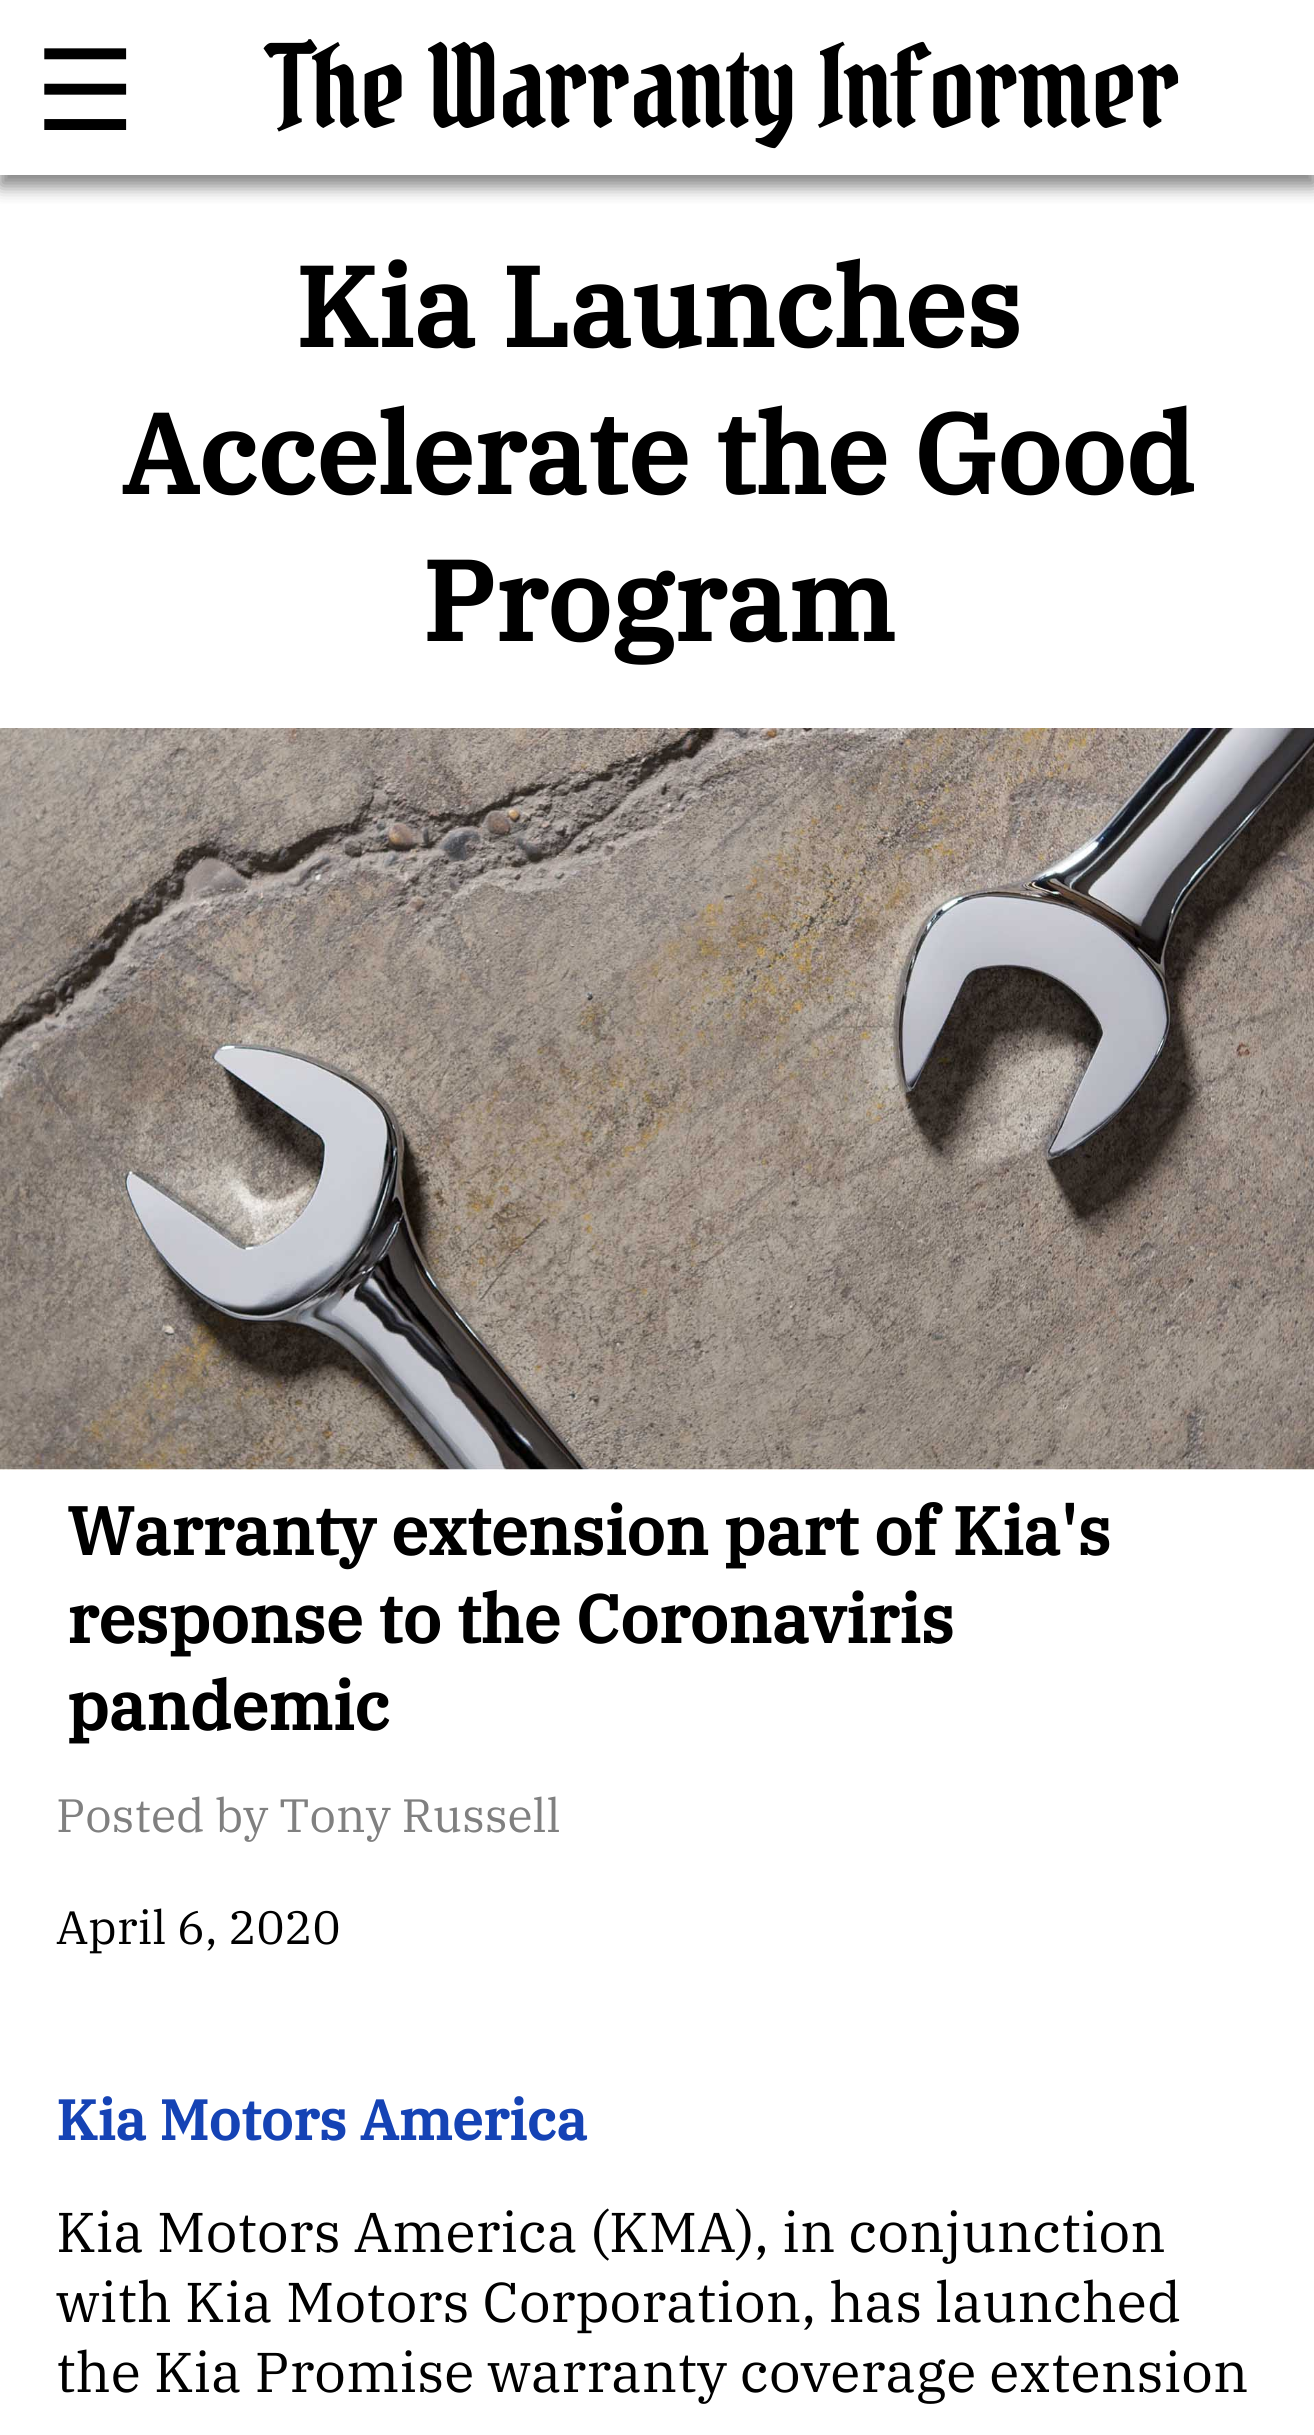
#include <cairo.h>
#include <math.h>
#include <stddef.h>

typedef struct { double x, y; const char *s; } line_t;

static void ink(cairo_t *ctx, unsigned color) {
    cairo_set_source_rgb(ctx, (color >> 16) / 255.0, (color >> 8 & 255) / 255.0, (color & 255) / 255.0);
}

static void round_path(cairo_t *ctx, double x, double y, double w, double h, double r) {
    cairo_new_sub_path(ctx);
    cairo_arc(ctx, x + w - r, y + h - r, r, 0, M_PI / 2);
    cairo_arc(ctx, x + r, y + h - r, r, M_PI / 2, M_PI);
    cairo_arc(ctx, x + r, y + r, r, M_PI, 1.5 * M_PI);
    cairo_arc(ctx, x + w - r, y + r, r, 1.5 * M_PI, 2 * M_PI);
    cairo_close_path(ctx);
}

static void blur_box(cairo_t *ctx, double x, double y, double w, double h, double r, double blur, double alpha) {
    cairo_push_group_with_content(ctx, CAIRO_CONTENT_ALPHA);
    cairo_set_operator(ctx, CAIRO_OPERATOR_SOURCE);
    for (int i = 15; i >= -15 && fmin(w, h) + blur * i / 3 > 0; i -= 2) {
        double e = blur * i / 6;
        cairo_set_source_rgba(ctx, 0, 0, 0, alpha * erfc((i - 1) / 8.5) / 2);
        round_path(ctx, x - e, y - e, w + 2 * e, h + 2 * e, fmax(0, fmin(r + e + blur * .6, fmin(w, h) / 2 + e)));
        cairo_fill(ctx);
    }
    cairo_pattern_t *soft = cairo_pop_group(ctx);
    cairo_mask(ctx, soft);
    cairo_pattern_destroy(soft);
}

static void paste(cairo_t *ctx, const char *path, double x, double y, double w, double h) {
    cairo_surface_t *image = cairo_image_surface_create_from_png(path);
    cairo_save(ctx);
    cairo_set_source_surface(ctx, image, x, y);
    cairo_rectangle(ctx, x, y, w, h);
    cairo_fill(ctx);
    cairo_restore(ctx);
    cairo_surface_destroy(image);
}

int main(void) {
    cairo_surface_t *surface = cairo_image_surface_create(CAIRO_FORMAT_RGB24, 1314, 2435);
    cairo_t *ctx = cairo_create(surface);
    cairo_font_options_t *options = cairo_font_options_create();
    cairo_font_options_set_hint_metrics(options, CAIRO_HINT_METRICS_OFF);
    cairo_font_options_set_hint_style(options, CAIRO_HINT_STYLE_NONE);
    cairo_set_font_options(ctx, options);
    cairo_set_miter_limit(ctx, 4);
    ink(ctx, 0xFFFFFF);
    cairo_paint(ctx);
    cairo_save(ctx);
    cairo_rectangle(ctx, 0, 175, 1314, 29);
    cairo_clip(ctx);
    ink(ctx, 0x808080);
    blur_box(ctx, 0, 11, 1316, 175, 0, 9, 1);
    cairo_restore(ctx);
    cairo_select_font_face(ctx, "DejaVu Sans", CAIRO_FONT_SLANT_NORMAL, CAIRO_FONT_WEIGHT_NORMAL);
    cairo_set_font_size(ctx, 112);
    ink(ctx, 0x000000);
    cairo_move_to(ctx, 35, 130);
    cairo_show_text(ctx, "☰");
    cairo_select_font_face(ctx, "Pirata One", CAIRO_FONT_SLANT_NORMAL, CAIRO_FONT_WEIGHT_NORMAL);
    cairo_move_to(ctx, 270, 128);
    cairo_show_text(ctx, "The Warranty Informer");
    cairo_select_font_face(ctx, "IBM Plex Serif", CAIRO_FONT_SLANT_NORMAL, CAIRO_FONT_WEIGHT_BOLD);
    {
        static const line_t items[] = {
            {295, 347, "Kia Launches"},
            {121, 494, "Accelerate the Good"},
            {422, 641, "Program"},
        };
        for (size_t i = 0; i < sizeof items / sizeof *items; i++) {
            cairo_move_to(ctx, items[i].x, items[i].y);
            cairo_show_text(ctx, items[i].s);
        }
    }
    paste(ctx, "media/1.png", 0, 728, 1314, 742);
    cairo_set_font_size(ctx, 67.25);
    {
        static const line_t items[] = {
            {67, 1555, "Warranty extension part of Kia's"},
            {67, 1643, "response to the Coronaviris"},
            {67, 1730, "pandemic"},
        };
        for (size_t i = 0; i < sizeof items / sizeof *items; i++) {
            cairo_move_to(ctx, items[i].x, items[i].y);
            cairo_show_text(ctx, items[i].s);
        }
    }
    cairo_select_font_face(ctx, "IBM Plex Serif", CAIRO_FONT_SLANT_NORMAL, CAIRO_FONT_WEIGHT_NORMAL);
    cairo_set_font_size(ctx, 46.75);
    ink(ctx, 0x808080);
    cairo_move_to(ctx, 56, 1832);
    cairo_show_text(ctx, "Posted by Tony Russell");
    ink(ctx, 0x000000);
    cairo_move_to(ctx, 56, 1944);
    cairo_show_text(ctx, "April 6, 2020");
    cairo_select_font_face(ctx, "IBM Plex Serif", CAIRO_FONT_SLANT_NORMAL, CAIRO_FONT_WEIGHT_BOLD);
    cairo_set_font_size(ctx, 56);
    ink(ctx, 0x1543B5);
    cairo_move_to(ctx, 56, 2140);
    cairo_show_text(ctx, "Kia Motors America");
    cairo_select_font_face(ctx, "IBM Plex Serif", CAIRO_FONT_SLANT_NORMAL, CAIRO_FONT_WEIGHT_NORMAL);
    ink(ctx, 0x000000);
    {
        static const line_t items[] = {
            {56, 2252, "Kia Motors America (KMA), in conjunction"},
            {56, 2322, "with Kia Motors Corporation, has launched"},
            {56, 2392, "the Kia Promise warranty coverage extension"},
        };
        for (size_t i = 0; i < sizeof items / sizeof *items; i++) {
            cairo_move_to(ctx, items[i].x, items[i].y);
            cairo_show_text(ctx, items[i].s);
        }
    }
    cairo_surface_write_to_png(surface, "image.png");
    cairo_font_options_destroy(options);
    cairo_destroy(ctx);
    cairo_surface_destroy(surface);
    return 0;
}
